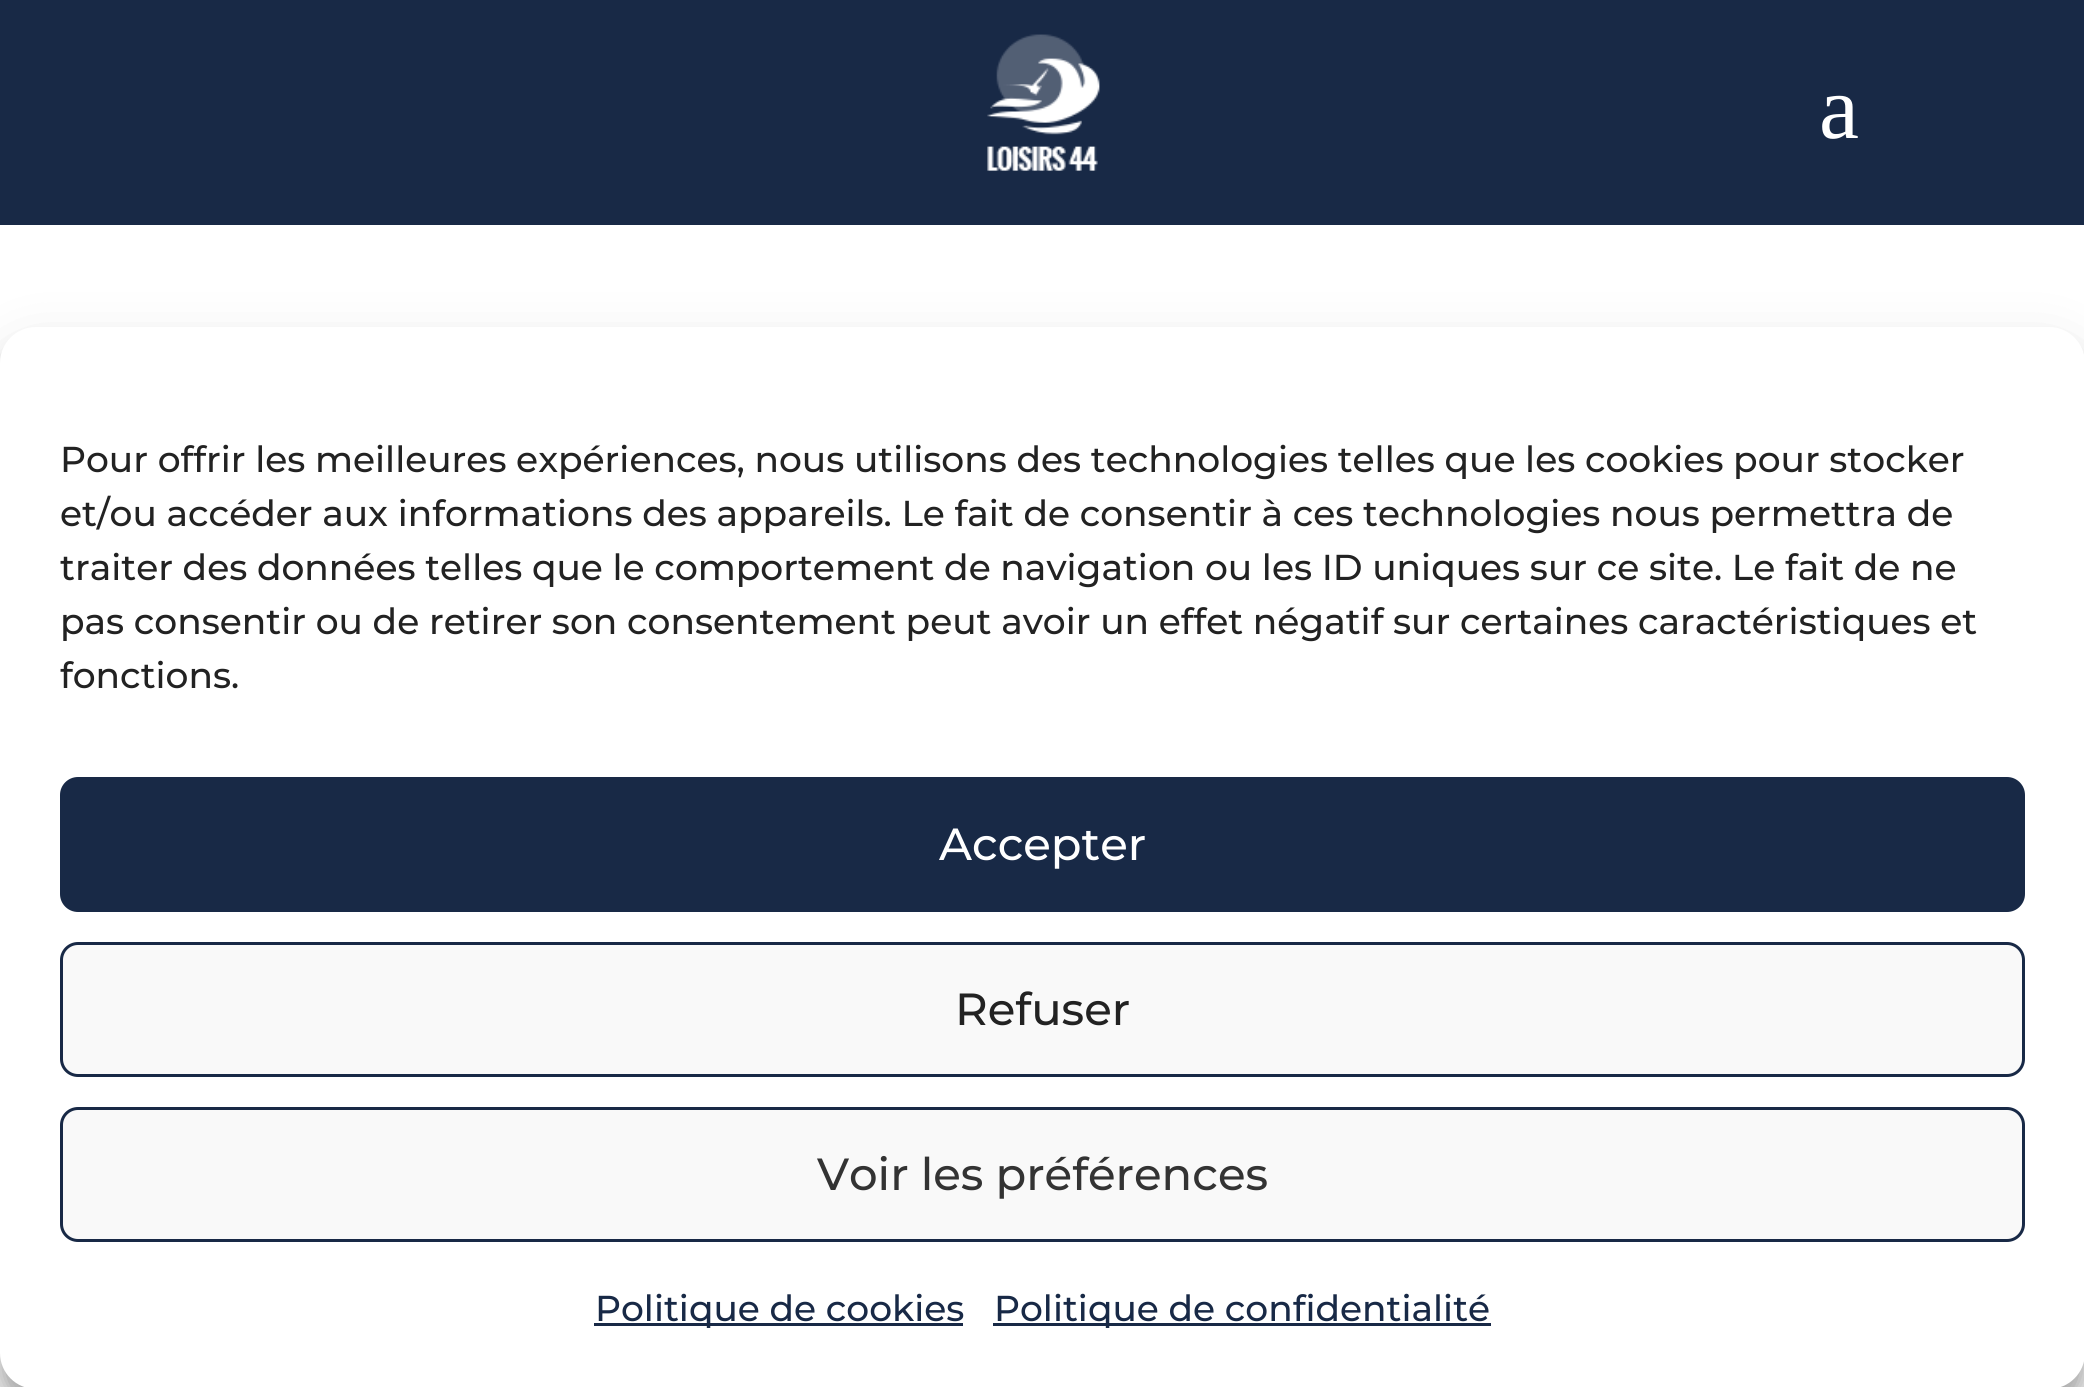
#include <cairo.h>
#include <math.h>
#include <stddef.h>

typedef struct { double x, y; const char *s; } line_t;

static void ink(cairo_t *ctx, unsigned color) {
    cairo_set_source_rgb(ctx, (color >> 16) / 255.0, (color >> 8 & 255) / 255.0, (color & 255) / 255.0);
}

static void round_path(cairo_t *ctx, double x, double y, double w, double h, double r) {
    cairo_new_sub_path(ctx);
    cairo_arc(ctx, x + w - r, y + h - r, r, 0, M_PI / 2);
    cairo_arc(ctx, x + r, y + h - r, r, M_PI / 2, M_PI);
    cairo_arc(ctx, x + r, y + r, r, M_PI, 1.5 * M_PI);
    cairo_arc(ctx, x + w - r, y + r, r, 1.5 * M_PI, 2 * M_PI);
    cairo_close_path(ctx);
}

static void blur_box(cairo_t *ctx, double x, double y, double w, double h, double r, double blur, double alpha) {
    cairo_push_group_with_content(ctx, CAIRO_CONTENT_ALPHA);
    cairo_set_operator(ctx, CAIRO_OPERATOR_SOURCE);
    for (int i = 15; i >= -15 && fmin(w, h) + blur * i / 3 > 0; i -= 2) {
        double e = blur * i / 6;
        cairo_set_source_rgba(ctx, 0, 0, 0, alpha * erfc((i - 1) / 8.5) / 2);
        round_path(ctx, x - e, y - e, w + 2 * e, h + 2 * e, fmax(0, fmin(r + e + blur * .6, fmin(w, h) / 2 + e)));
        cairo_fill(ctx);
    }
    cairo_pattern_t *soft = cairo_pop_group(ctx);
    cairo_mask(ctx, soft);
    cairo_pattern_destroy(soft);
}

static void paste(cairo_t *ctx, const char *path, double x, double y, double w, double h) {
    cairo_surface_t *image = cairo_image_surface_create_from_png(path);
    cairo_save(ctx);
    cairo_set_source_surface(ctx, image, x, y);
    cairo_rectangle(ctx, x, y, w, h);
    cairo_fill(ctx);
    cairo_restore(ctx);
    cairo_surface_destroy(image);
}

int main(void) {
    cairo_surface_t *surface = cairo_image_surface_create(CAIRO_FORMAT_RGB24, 2084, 1387);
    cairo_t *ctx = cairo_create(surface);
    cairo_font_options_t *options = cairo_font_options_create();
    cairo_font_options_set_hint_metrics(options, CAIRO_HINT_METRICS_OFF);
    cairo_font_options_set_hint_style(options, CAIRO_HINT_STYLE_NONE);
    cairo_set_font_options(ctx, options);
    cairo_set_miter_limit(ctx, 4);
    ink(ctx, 0xFFFFFF);
    cairo_paint(ctx);
    ink(ctx, 0x182946);
    cairo_rectangle(ctx, 0, 0, 2084, 225);
    cairo_fill(ctx);
    paste(ctx, "media/1.png", 987, 34, 113, 137);
    cairo_select_font_face(ctx, "Liberation Serif", CAIRO_FONT_SLANT_NORMAL, CAIRO_FONT_WEIGHT_NORMAL);
    cairo_set_font_size(ctx, 90);
    ink(ctx, 0xFFFFFF);
    cairo_move_to(ctx, 1819, 138);
    cairo_show_text(ctx, "a");
    ink(ctx, 0x000000);
    blur_box(ctx, 0, 345, 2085, 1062, 36, 9, 0.23);
    blur_box(ctx, 0, 357, 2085, 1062, 36, 30, 0.19);
    ink(ctx, 0x808080);
    blur_box(ctx, 1875, 1167, 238, 180, 6, 7.5, 1);
    ink(ctx, 0xFFFFFF);
    round_path(ctx, 0, 327, 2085, 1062, 36);
    cairo_fill(ctx);
    cairo_select_font_face(ctx, "Montserrat Medium", CAIRO_FONT_SLANT_NORMAL, CAIRO_FONT_WEIGHT_NORMAL);
    cairo_set_font_size(ctx, 36);
    ink(ctx, 0x222222);
    {
        static const line_t items[] = {
            {60, 472, "Pour offrir les meilleures expériences, nous utilisons des technologies telles que les cookies pour stocker"},
            {60, 526, "et/ou accéder aux informations des appareils. Le fait de consentir à ces technologies nous permettra de"},
            {60, 580, "traiter des données telles que le comportement de navigation ou les ID uniques sur ce site. Le fait de ne"},
            {60, 634, "pas consentir ou de retirer son consentement peut avoir un effet négatif sur certaines caractéristiques et"},
            {60, 688, "fonctions."},
        };
        for (size_t i = 0; i < sizeof items / sizeof *items; i++) {
            cairo_move_to(ctx, items[i].x, items[i].y);
            cairo_show_text(ctx, items[i].s);
        }
    }
    ink(ctx, 0x182946);
    round_path(ctx, 61.5, 778.5, 1962, 132, 16.5);
    cairo_fill_preserve(ctx);
    cairo_set_line_width(ctx, 3);
    cairo_stroke(ctx);
    cairo_set_font_size(ctx, 45);
    ink(ctx, 0xFFFFFF);
    cairo_move_to(ctx, 939, 860);
    cairo_show_text(ctx, "Accepter");
    ink(ctx, 0xF9F9F9);
    round_path(ctx, 61.5, 943.5, 1962, 132, 16.5);
    cairo_fill_preserve(ctx);
    ink(ctx, 0x182946);
    cairo_stroke(ctx);
    ink(ctx, 0x222222);
    cairo_move_to(ctx, 955, 1025);
    cairo_show_text(ctx, "Refuser");
    ink(ctx, 0xF9F9F9);
    round_path(ctx, 61.5, 1108.5, 1962, 132, 16.5);
    cairo_fill_preserve(ctx);
    ink(ctx, 0x182946);
    cairo_stroke(ctx);
    ink(ctx, 0x333333);
    cairo_move_to(ctx, 817, 1190);
    cairo_show_text(ctx, "Voir les préférences");
    ink(ctx, 0x182946);
    cairo_rectangle(ctx, 594, 1323, 369, 3);
    cairo_fill(ctx);
    cairo_set_font_size(ctx, 36);
    cairo_move_to(ctx, 595, 1321);
    cairo_show_text(ctx, "Politique de cookies");
    cairo_rectangle(ctx, 993, 1323, 498, 3);
    cairo_fill(ctx);
    cairo_move_to(ctx, 994, 1321);
    cairo_show_text(ctx, "Politique de confidentialité");
    cairo_surface_write_to_png(surface, "image.png");
    cairo_font_options_destroy(options);
    cairo_destroy(ctx);
    cairo_surface_destroy(surface);
    return 0;
}
